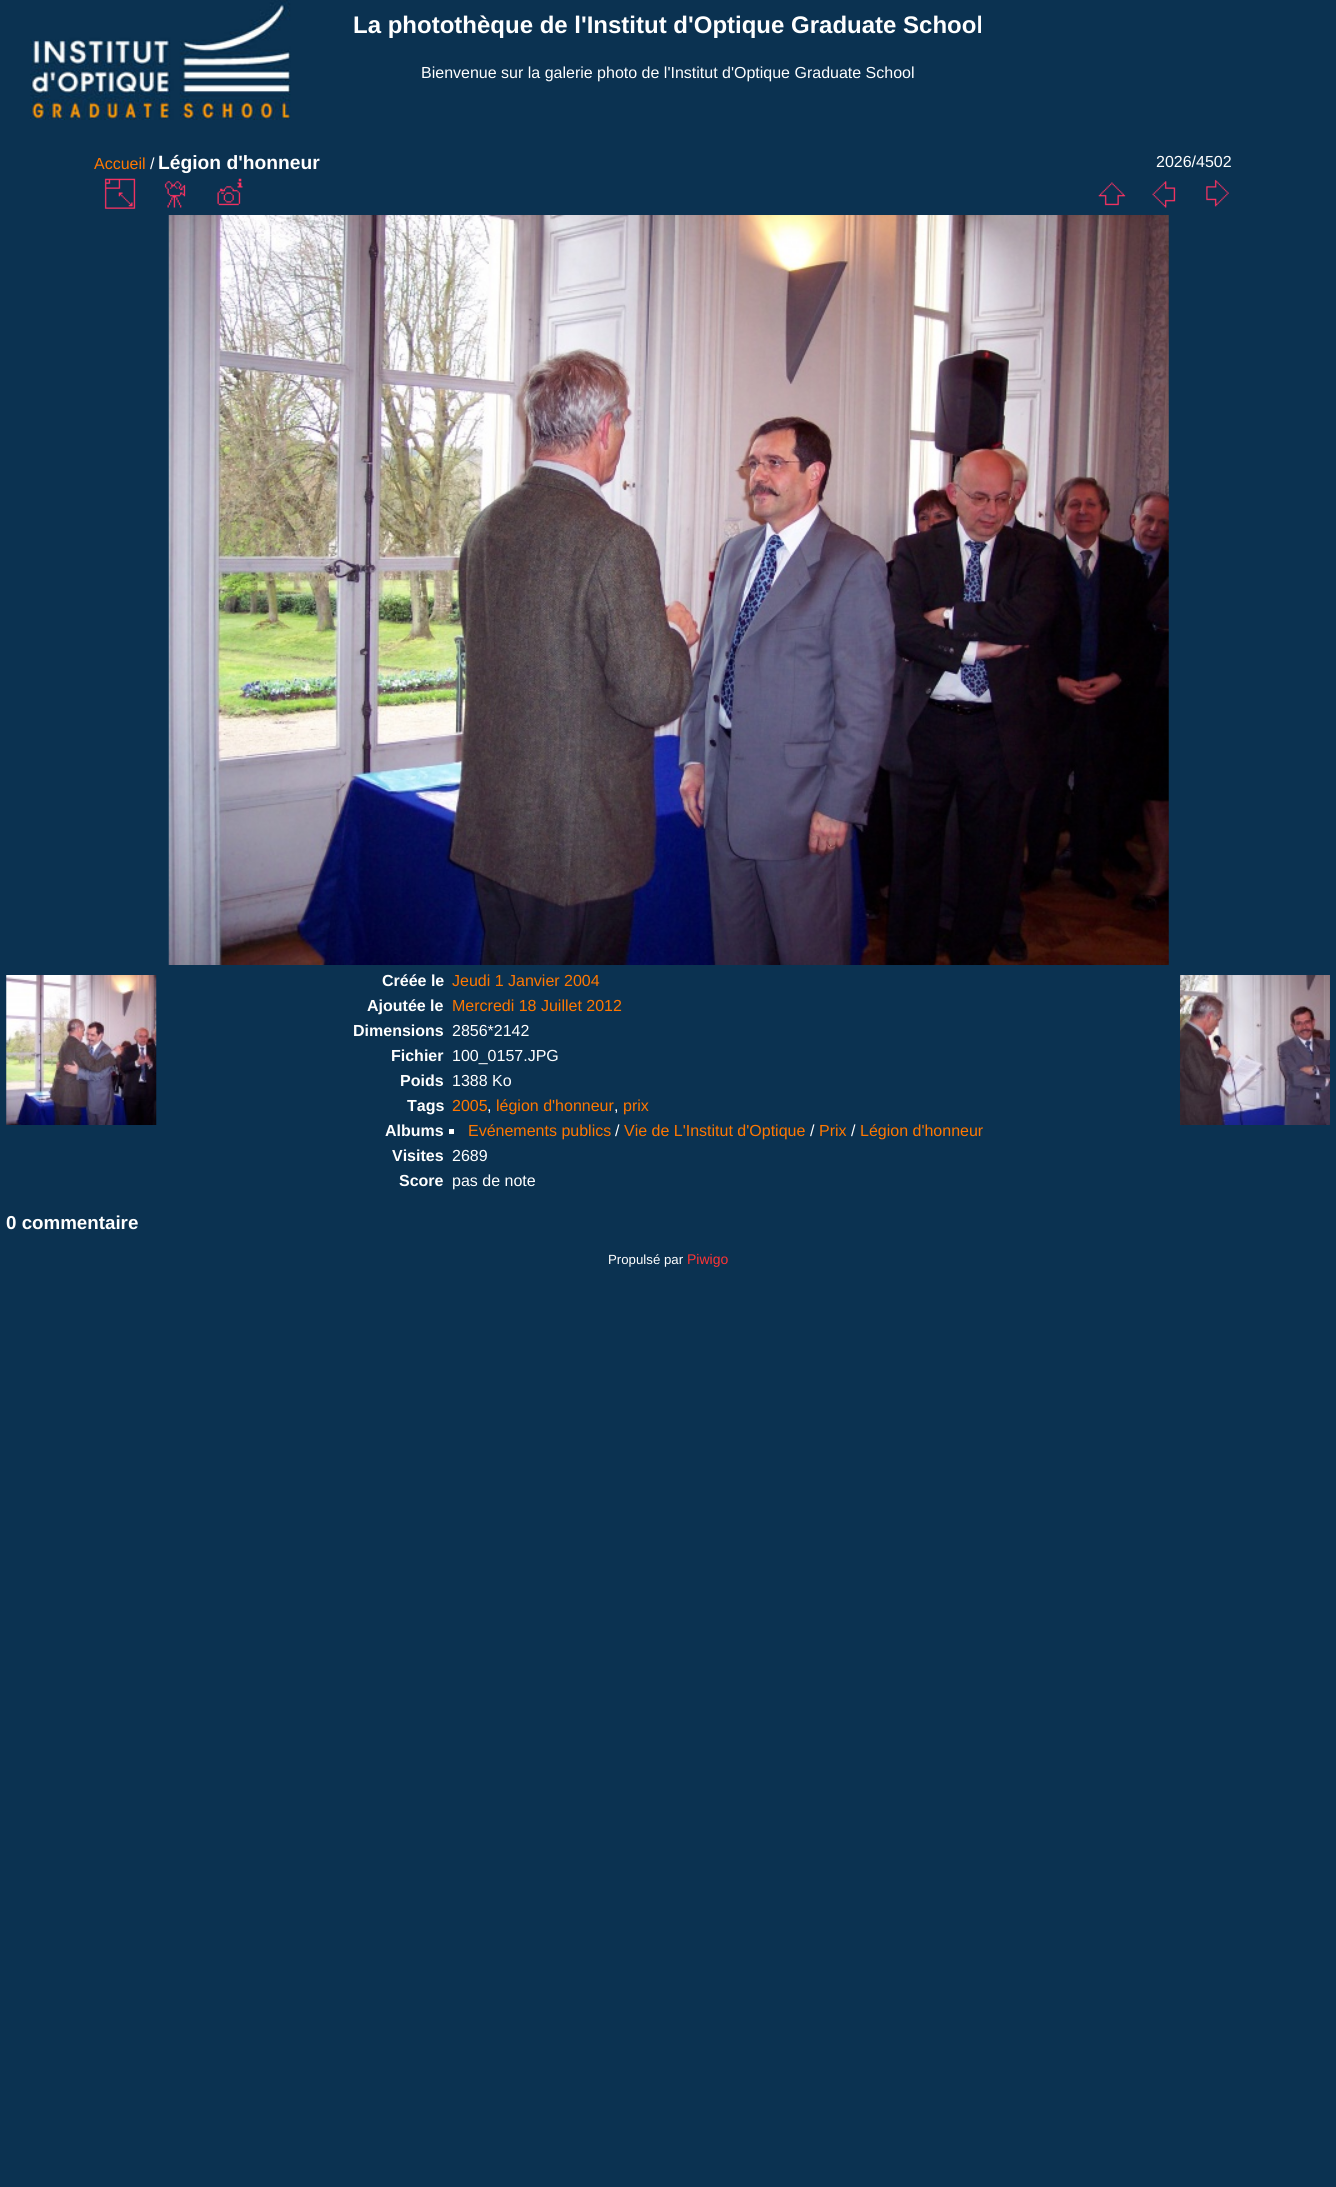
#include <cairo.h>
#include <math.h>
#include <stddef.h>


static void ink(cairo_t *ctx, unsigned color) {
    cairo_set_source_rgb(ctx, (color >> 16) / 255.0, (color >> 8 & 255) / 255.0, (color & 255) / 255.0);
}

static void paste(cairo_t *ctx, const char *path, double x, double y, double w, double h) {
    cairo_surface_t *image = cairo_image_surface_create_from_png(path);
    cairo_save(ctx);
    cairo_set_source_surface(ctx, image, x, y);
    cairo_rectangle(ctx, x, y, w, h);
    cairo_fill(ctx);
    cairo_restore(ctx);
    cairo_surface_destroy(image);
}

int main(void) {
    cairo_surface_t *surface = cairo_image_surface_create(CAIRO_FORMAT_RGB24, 1336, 2187);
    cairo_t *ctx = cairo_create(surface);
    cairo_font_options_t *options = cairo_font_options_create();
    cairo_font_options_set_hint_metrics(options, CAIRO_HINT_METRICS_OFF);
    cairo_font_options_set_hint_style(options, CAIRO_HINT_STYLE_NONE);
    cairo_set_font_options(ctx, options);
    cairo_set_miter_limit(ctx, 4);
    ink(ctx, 0x0B3251);
    cairo_paint(ctx);
    paste(ctx, "media/1.png", 30, 0, 261, 120);
    cairo_select_font_face(ctx, "Liberation Sans", CAIRO_FONT_SLANT_NORMAL, CAIRO_FONT_WEIGHT_BOLD);
    cairo_set_font_size(ctx, 24);
    ink(ctx, 0xFFFFFF);
    cairo_move_to(ctx, 353, 33);
    cairo_show_text(ctx, "La photothèque de l'Institut d'Optique Graduate School");
    cairo_select_font_face(ctx, "Liberation Sans", CAIRO_FONT_SLANT_NORMAL, CAIRO_FONT_WEIGHT_NORMAL);
    cairo_set_font_size(ctx, 16);
    cairo_move_to(ctx, 421, 78);
    cairo_show_text(ctx, "Bienvenue sur la galerie photo de l'Institut d'Optique Graduate School");
    ink(ctx, 0xFF7700);
    cairo_move_to(ctx, 94, 169);
    cairo_show_text(ctx, "Accueil");
    ink(ctx, 0xFFFFFF);
    cairo_move_to(ctx, 150, 169);
    cairo_show_text(ctx, "/");
    cairo_select_font_face(ctx, "Liberation Sans", CAIRO_FONT_SLANT_NORMAL, CAIRO_FONT_WEIGHT_BOLD);
    cairo_set_font_size(ctx, 19.25);
    cairo_move_to(ctx, 158, 169);
    cairo_show_text(ctx, "Légion d'honneur");
    cairo_select_font_face(ctx, "Liberation Sans", CAIRO_FONT_SLANT_NORMAL, CAIRO_FONT_WEIGHT_NORMAL);
    cairo_set_font_size(ctx, 16);
    cairo_move_to(ctx, 1156, 167);
    cairo_show_text(ctx, "2026/4502");
    paste(ctx, "media/2.png", 104, 178, 32, 31);
    paste(ctx, "media/3.png", 164, 181, 22, 27);
    paste(ctx, "media/4.png", 217, 178, 26, 28);
    paste(ctx, "media/5.png", 1098, 182, 28, 24);
    paste(ctx, "media/6.png", 1152, 181, 24, 27);
    paste(ctx, "media/7.png", 1206, 179, 23, 28);
    paste(ctx, "media/8.png", 168, 215, 1001, 750);
    cairo_select_font_face(ctx, "Liberation Sans", CAIRO_FONT_SLANT_NORMAL, CAIRO_FONT_WEIGHT_BOLD);
    cairo_move_to(ctx, 382, 986);
    cairo_show_text(ctx, "Créée le");
    cairo_select_font_face(ctx, "Liberation Sans", CAIRO_FONT_SLANT_NORMAL, CAIRO_FONT_WEIGHT_NORMAL);
    ink(ctx, 0xFF7700);
    cairo_move_to(ctx, 452, 986);
    cairo_show_text(ctx, "Jeudi 1 Janvier 2004");
    cairo_select_font_face(ctx, "Liberation Sans", CAIRO_FONT_SLANT_NORMAL, CAIRO_FONT_WEIGHT_BOLD);
    ink(ctx, 0xFFFFFF);
    cairo_move_to(ctx, 367, 1011);
    cairo_show_text(ctx, "Ajoutée le");
    cairo_select_font_face(ctx, "Liberation Sans", CAIRO_FONT_SLANT_NORMAL, CAIRO_FONT_WEIGHT_NORMAL);
    ink(ctx, 0xFF7700);
    cairo_move_to(ctx, 452, 1011);
    cairo_show_text(ctx, "Mercredi 18 Juillet 2012");
    cairo_select_font_face(ctx, "Liberation Sans", CAIRO_FONT_SLANT_NORMAL, CAIRO_FONT_WEIGHT_BOLD);
    ink(ctx, 0xFFFFFF);
    cairo_move_to(ctx, 353, 1036);
    cairo_show_text(ctx, "Dimensions");
    cairo_select_font_face(ctx, "Liberation Sans", CAIRO_FONT_SLANT_NORMAL, CAIRO_FONT_WEIGHT_NORMAL);
    cairo_move_to(ctx, 452, 1036);
    cairo_show_text(ctx, "2856*2142");
    cairo_select_font_face(ctx, "Liberation Sans", CAIRO_FONT_SLANT_NORMAL, CAIRO_FONT_WEIGHT_BOLD);
    cairo_move_to(ctx, 391, 1061);
    cairo_show_text(ctx, "Fichier");
    cairo_select_font_face(ctx, "Liberation Sans", CAIRO_FONT_SLANT_NORMAL, CAIRO_FONT_WEIGHT_NORMAL);
    cairo_move_to(ctx, 452, 1061);
    cairo_show_text(ctx, "100_0157.JPG");
    cairo_select_font_face(ctx, "Liberation Sans", CAIRO_FONT_SLANT_NORMAL, CAIRO_FONT_WEIGHT_BOLD);
    cairo_move_to(ctx, 400, 1086);
    cairo_show_text(ctx, "Poids");
    cairo_select_font_face(ctx, "Liberation Sans", CAIRO_FONT_SLANT_NORMAL, CAIRO_FONT_WEIGHT_NORMAL);
    cairo_move_to(ctx, 452, 1086);
    cairo_show_text(ctx, "1388 Ko");
    cairo_select_font_face(ctx, "Liberation Sans", CAIRO_FONT_SLANT_NORMAL, CAIRO_FONT_WEIGHT_BOLD);
    cairo_move_to(ctx, 407, 1111);
    cairo_show_text(ctx, "Tags");
    cairo_select_font_face(ctx, "Liberation Sans", CAIRO_FONT_SLANT_NORMAL, CAIRO_FONT_WEIGHT_NORMAL);
    ink(ctx, 0xFF7700);
    cairo_move_to(ctx, 452, 1111);
    cairo_show_text(ctx, "2005");
    ink(ctx, 0xFFFFFF);
    cairo_move_to(ctx, 487, 1111);
    cairo_show_text(ctx, ",");
    ink(ctx, 0xFF7700);
    cairo_move_to(ctx, 496, 1111);
    cairo_show_text(ctx, "légion d'honneur");
    ink(ctx, 0xFFFFFF);
    cairo_move_to(ctx, 614, 1111);
    cairo_show_text(ctx, ",");
    ink(ctx, 0xFF7700);
    cairo_move_to(ctx, 623, 1111);
    cairo_show_text(ctx, "prix");
    cairo_select_font_face(ctx, "Liberation Sans", CAIRO_FONT_SLANT_NORMAL, CAIRO_FONT_WEIGHT_BOLD);
    ink(ctx, 0xFFFFFF);
    cairo_move_to(ctx, 385, 1136);
    cairo_show_text(ctx, "Albums");
    cairo_rectangle(ctx, 449, 1129, 5, 5);
    cairo_fill(ctx);
    cairo_select_font_face(ctx, "Liberation Sans", CAIRO_FONT_SLANT_NORMAL, CAIRO_FONT_WEIGHT_NORMAL);
    ink(ctx, 0xFF7700);
    cairo_move_to(ctx, 468, 1136);
    cairo_show_text(ctx, "Evénements publics");
    ink(ctx, 0xFFFFFF);
    cairo_move_to(ctx, 615, 1136);
    cairo_show_text(ctx, "/");
    ink(ctx, 0xFF7700);
    cairo_move_to(ctx, 624, 1136);
    cairo_show_text(ctx, "Vie de L'Institut d'Optique");
    ink(ctx, 0xFFFFFF);
    cairo_move_to(ctx, 810, 1136);
    cairo_show_text(ctx, "/");
    ink(ctx, 0xFF7700);
    cairo_move_to(ctx, 819, 1136);
    cairo_show_text(ctx, "Prix");
    ink(ctx, 0xFFFFFF);
    cairo_move_to(ctx, 851, 1136);
    cairo_show_text(ctx, "/");
    ink(ctx, 0xFF7700);
    cairo_move_to(ctx, 860, 1136);
    cairo_show_text(ctx, "Légion d'honneur");
    cairo_select_font_face(ctx, "Liberation Sans", CAIRO_FONT_SLANT_NORMAL, CAIRO_FONT_WEIGHT_BOLD);
    ink(ctx, 0xFFFFFF);
    cairo_move_to(ctx, 392, 1161);
    cairo_show_text(ctx, "Visites");
    cairo_select_font_face(ctx, "Liberation Sans", CAIRO_FONT_SLANT_NORMAL, CAIRO_FONT_WEIGHT_NORMAL);
    cairo_move_to(ctx, 452, 1161);
    cairo_show_text(ctx, "2689");
    cairo_select_font_face(ctx, "Liberation Sans", CAIRO_FONT_SLANT_NORMAL, CAIRO_FONT_WEIGHT_BOLD);
    cairo_move_to(ctx, 399, 1186);
    cairo_show_text(ctx, "Score");
    cairo_select_font_face(ctx, "Liberation Sans", CAIRO_FONT_SLANT_NORMAL, CAIRO_FONT_WEIGHT_NORMAL);
    cairo_move_to(ctx, 452, 1186);
    cairo_show_text(ctx, "pas de note");
    paste(ctx, "media/9.png", 6, 975, 151, 150);
    paste(ctx, "media/10.png", 1180, 975, 150, 150);
    cairo_select_font_face(ctx, "Liberation Sans", CAIRO_FONT_SLANT_NORMAL, CAIRO_FONT_WEIGHT_BOLD);
    cairo_set_font_size(ctx, 18.75);
    cairo_move_to(ctx, 6, 1229);
    cairo_show_text(ctx, "0 commentaire");
    cairo_select_font_face(ctx, "Liberation Sans", CAIRO_FONT_SLANT_NORMAL, CAIRO_FONT_WEIGHT_NORMAL);
    cairo_set_font_size(ctx, 13.25);
    cairo_move_to(ctx, 608, 1264);
    cairo_show_text(ctx, "Propulsé par");
    cairo_set_font_size(ctx, 14);
    ink(ctx, 0xFF3333);
    cairo_move_to(ctx, 687, 1264);
    cairo_show_text(ctx, "Piwigo");
    cairo_surface_write_to_png(surface, "image.png");
    cairo_font_options_destroy(options);
    cairo_destroy(ctx);
    cairo_surface_destroy(surface);
    return 0;
}
